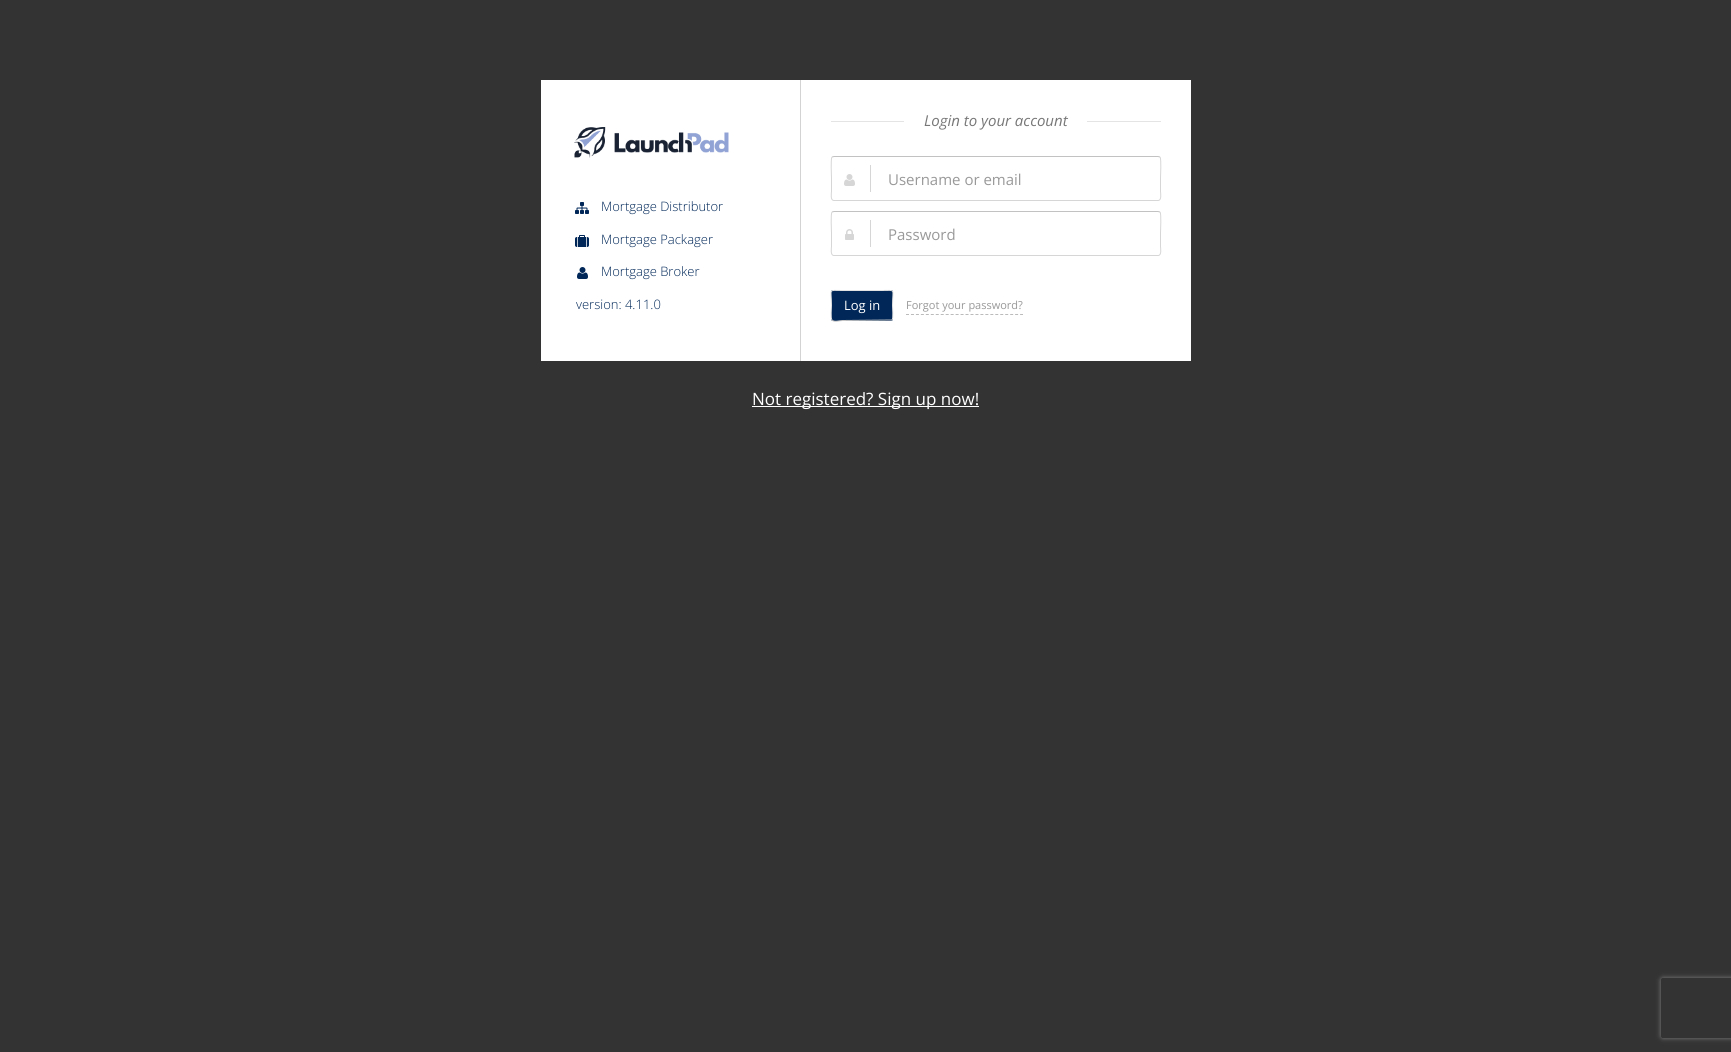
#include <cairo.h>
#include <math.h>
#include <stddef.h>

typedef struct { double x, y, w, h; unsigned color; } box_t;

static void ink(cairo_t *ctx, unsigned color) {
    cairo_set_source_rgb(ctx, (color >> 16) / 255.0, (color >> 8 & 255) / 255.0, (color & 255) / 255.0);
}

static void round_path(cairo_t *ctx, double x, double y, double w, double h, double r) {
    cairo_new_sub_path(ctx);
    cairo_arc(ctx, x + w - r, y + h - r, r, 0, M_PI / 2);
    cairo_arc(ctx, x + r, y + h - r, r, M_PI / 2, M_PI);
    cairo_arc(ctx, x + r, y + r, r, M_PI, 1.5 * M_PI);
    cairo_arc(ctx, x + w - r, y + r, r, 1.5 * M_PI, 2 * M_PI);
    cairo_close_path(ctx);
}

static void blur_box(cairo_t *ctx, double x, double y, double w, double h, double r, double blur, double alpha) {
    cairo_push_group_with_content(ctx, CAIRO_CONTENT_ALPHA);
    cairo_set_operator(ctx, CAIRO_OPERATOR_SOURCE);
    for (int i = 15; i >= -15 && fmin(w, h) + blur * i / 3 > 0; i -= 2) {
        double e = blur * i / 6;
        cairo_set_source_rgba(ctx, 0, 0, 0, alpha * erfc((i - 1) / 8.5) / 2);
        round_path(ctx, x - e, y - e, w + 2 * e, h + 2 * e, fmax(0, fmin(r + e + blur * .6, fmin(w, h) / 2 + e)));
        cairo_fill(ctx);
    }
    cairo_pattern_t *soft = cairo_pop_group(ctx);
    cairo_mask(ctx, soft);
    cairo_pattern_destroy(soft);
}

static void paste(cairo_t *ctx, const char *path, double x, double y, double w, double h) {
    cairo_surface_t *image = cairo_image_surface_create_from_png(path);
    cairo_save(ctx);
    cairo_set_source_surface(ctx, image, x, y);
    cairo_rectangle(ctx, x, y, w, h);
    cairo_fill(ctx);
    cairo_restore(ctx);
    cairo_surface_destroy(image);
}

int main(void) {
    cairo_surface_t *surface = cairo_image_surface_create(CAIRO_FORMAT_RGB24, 1731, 1052);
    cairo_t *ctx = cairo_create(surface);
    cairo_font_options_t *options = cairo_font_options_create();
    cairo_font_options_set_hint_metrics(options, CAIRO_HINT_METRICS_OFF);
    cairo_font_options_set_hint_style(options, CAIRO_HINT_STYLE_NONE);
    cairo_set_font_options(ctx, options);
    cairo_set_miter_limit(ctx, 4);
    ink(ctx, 0x333333);
    cairo_paint(ctx);
    ink(ctx, 0xFFFFFF);
    cairo_rectangle(ctx, 541, 80, 259, 281);
    cairo_fill(ctx);
    ink(ctx, 0xD3D3D3);
    cairo_rectangle(ctx, 800, 80, 1, 281);
    cairo_fill(ctx);
    paste(ctx, "media/1.png", 574, 127, 155, 31);
    paste(ctx, "media/2.png", 575, 202, 14, 12);
    cairo_select_font_face(ctx, "Open Sans Light", CAIRO_FONT_SLANT_NORMAL, CAIRO_FONT_WEIGHT_NORMAL);
    cairo_set_font_size(ctx, 13);
    ink(ctx, 0x002758);
    cairo_move_to(ctx, 601, 211);
    cairo_show_text(ctx, "Mortgage Distributor");
    paste(ctx, "media/3.png", 575, 235, 14, 12);
    cairo_move_to(ctx, 601, 244);
    cairo_show_text(ctx, "Mortgage Packager");
    paste(ctx, "media/4.png", 577, 267, 11, 12);
    cairo_move_to(ctx, 601, 276);
    cairo_show_text(ctx, "Mortgage Broker");
    cairo_move_to(ctx, 576, 309);
    cairo_show_text(ctx, "version: 4.11.0");
    {
        static const box_t items[] = {
            {801, 80, 390, 281, 0xFFFFFF},
            {831, 121, 330, 1, 0xE4E4E4},
            {904, 121, 183, 1, 0xFFFFFF},
        };
        for (size_t i = 0; i < sizeof items / sizeof *items; i++) {
            ink(ctx, items[i].color);
            cairo_rectangle(ctx, items[i].x, items[i].y, items[i].w, items[i].h);
            cairo_fill(ctx);
        }
    }
    cairo_select_font_face(ctx, "Open Sans", CAIRO_FONT_SLANT_ITALIC, CAIRO_FONT_WEIGHT_NORMAL);
    cairo_set_font_size(ctx, 15);
    ink(ctx, 0x777777);
    cairo_move_to(ctx, 924, 126);
    cairo_show_text(ctx, "Login to your account");
    cairo_new_path(ctx);
    cairo_move_to(ctx, 832, 157);
    cairo_line_to(ctx, 834, 156.5);
    cairo_line_to(ctx, 1158, 156.5);
    cairo_line_to(ctx, 1160, 157);
    ink(ctx, 0xC2C2C2);
    cairo_set_line_width(ctx, 1);
    cairo_stroke(ctx);
    cairo_new_path(ctx);
    cairo_move_to(ctx, 1160, 157);
    cairo_curve_to(ctx, 1161.5, 159, 1160.5, 175.5, 1160.5, 178.5);
    cairo_line_to(ctx, 1160.5, 191.5);
    cairo_curve_to(ctx, 1160.5, 193, 1162, 200.5, 1158, 200.5);
    cairo_line_to(ctx, 834, 200.5);
    cairo_curve_to(ctx, 830, 200.5, 831.5, 193, 831.5, 191.5);
    cairo_line_to(ctx, 831.5, 178.5);
    cairo_curve_to(ctx, 831.5, 175.5, 830.5, 159, 832, 157);
    ink(ctx, 0xD6D6D6);
    cairo_stroke(ctx);
    cairo_rectangle(ctx, 870, 165, 1, 27);
    cairo_fill(ctx);
    paste(ctx, "media/5.png", 844, 174, 11, 12);
    cairo_select_font_face(ctx, "Open Sans", CAIRO_FONT_SLANT_NORMAL, CAIRO_FONT_WEIGHT_NORMAL);
    ink(ctx, 0x999999);
    cairo_move_to(ctx, 888, 185);
    cairo_show_text(ctx, "Username or email");
    cairo_new_path(ctx);
    cairo_move_to(ctx, 832, 212);
    cairo_line_to(ctx, 834, 211.5);
    cairo_line_to(ctx, 1158, 211.5);
    cairo_line_to(ctx, 1160, 212);
    ink(ctx, 0xC2C2C2);
    cairo_stroke(ctx);
    cairo_new_path(ctx);
    cairo_move_to(ctx, 1160, 212);
    cairo_curve_to(ctx, 1161.5, 214, 1160.5, 230.5, 1160.5, 233.5);
    cairo_line_to(ctx, 1160.5, 246.5);
    cairo_curve_to(ctx, 1160.5, 248, 1162, 255.5, 1158, 255.5);
    cairo_line_to(ctx, 834, 255.5);
    cairo_curve_to(ctx, 830, 255.5, 831.5, 248, 831.5, 246.5);
    cairo_line_to(ctx, 831.5, 233.5);
    cairo_curve_to(ctx, 831.5, 230.5, 830.5, 214, 832, 212);
    ink(ctx, 0xD6D6D6);
    cairo_stroke(ctx);
    cairo_rectangle(ctx, 870, 220, 1, 27);
    cairo_fill(ctx);
    paste(ctx, "media/6.png", 845, 229, 9, 11);
    ink(ctx, 0x999999);
    cairo_move_to(ctx, 888, 240);
    cairo_show_text(ctx, "Password");
    ink(ctx, 0x002758);
    round_path(ctx, 831, 290, 62, 31, 2);
    cairo_fill(ctx);
    cairo_new_path(ctx);
    cairo_move_to(ctx, 892, 320);
    cairo_line_to(ctx, 842.5, 320.5);
    cairo_curve_to(ctx, 839, 320.5, 834.5, 322.5, 832, 320);
    ink(ctx, 0xC6C6C6);
    cairo_stroke(ctx);
    cairo_new_path(ctx);
    cairo_move_to(ctx, 832, 320);
    cairo_curve_to(ctx, 830.5, 318.5, 831.5, 308, 831.5, 305.5);
    cairo_curve_to(ctx, 831.5, 288, 827.5, 290.5, 842.5, 290.5);
    cairo_line_to(ctx, 881.5, 290.5);
    cairo_curve_to(ctx, 896.5, 290.5, 892.5, 288, 892.5, 305.5);
    cairo_curve_to(ctx, 892.5, 308, 893.5, 318.5, 892, 320);
    ink(ctx, 0xE2E2E2);
    cairo_stroke(ctx);
    cairo_set_font_size(ctx, 13);
    ink(ctx, 0xFFFFFF);
    cairo_move_to(ctx, 844, 310);
    cairo_show_text(ctx, "Log in");
    cairo_new_path(ctx);
    cairo_move_to(ctx, 906, 314.5);
    cairo_line_to(ctx, 1023, 314.5);
    ink(ctx, 0xBBBBBB);
    cairo_set_dash(ctx, (double[]){3, 1.96}, 2, 0);
    cairo_stroke(ctx);
    cairo_set_font_size(ctx, 11);
    ink(ctx, 0x999999);
    cairo_move_to(ctx, 906, 309);
    cairo_show_text(ctx, "Forgot your password?");
    ink(ctx, 0xFFFFFF);
    cairo_rectangle(ctx, 752, 406, 227, 1);
    cairo_fill(ctx);
    cairo_set_font_size(ctx, 17);
    cairo_move_to(ctx, 752, 405);
    cairo_show_text(ctx, "Not registered? Sign up now!");
    cairo_save(ctx);
    cairo_set_fill_rule(ctx, CAIRO_FILL_RULE_EVEN_ODD);
    cairo_new_path(ctx);
    cairo_move_to(ctx, 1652, 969);
    cairo_line_to(ctx, 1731, 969);
    cairo_line_to(ctx, 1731, 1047);
    cairo_line_to(ctx, 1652, 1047);
    cairo_close_path(ctx);
    cairo_move_to(ctx, 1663, 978);
    cairo_line_to(ctx, 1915, 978);
    cairo_curve_to(ctx, 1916, 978, 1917, 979, 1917, 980);
    cairo_line_to(ctx, 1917, 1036);
    cairo_curve_to(ctx, 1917, 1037, 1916, 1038, 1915, 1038);
    cairo_line_to(ctx, 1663, 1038);
    cairo_curve_to(ctx, 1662, 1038, 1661, 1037, 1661, 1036);
    cairo_line_to(ctx, 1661, 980);
    cairo_curve_to(ctx, 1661, 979, 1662, 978, 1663, 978);
    cairo_close_path(ctx);
    cairo_clip(ctx);
    ink(ctx, 0x808080);
    blur_box(ctx, 1661, 978, 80, 60, 2, 2.5, 1);
    cairo_restore(ctx);
    cairo_surface_write_to_png(surface, "image.png");
    cairo_font_options_destroy(options);
    cairo_destroy(ctx);
    cairo_surface_destroy(surface);
    return 0;
}
